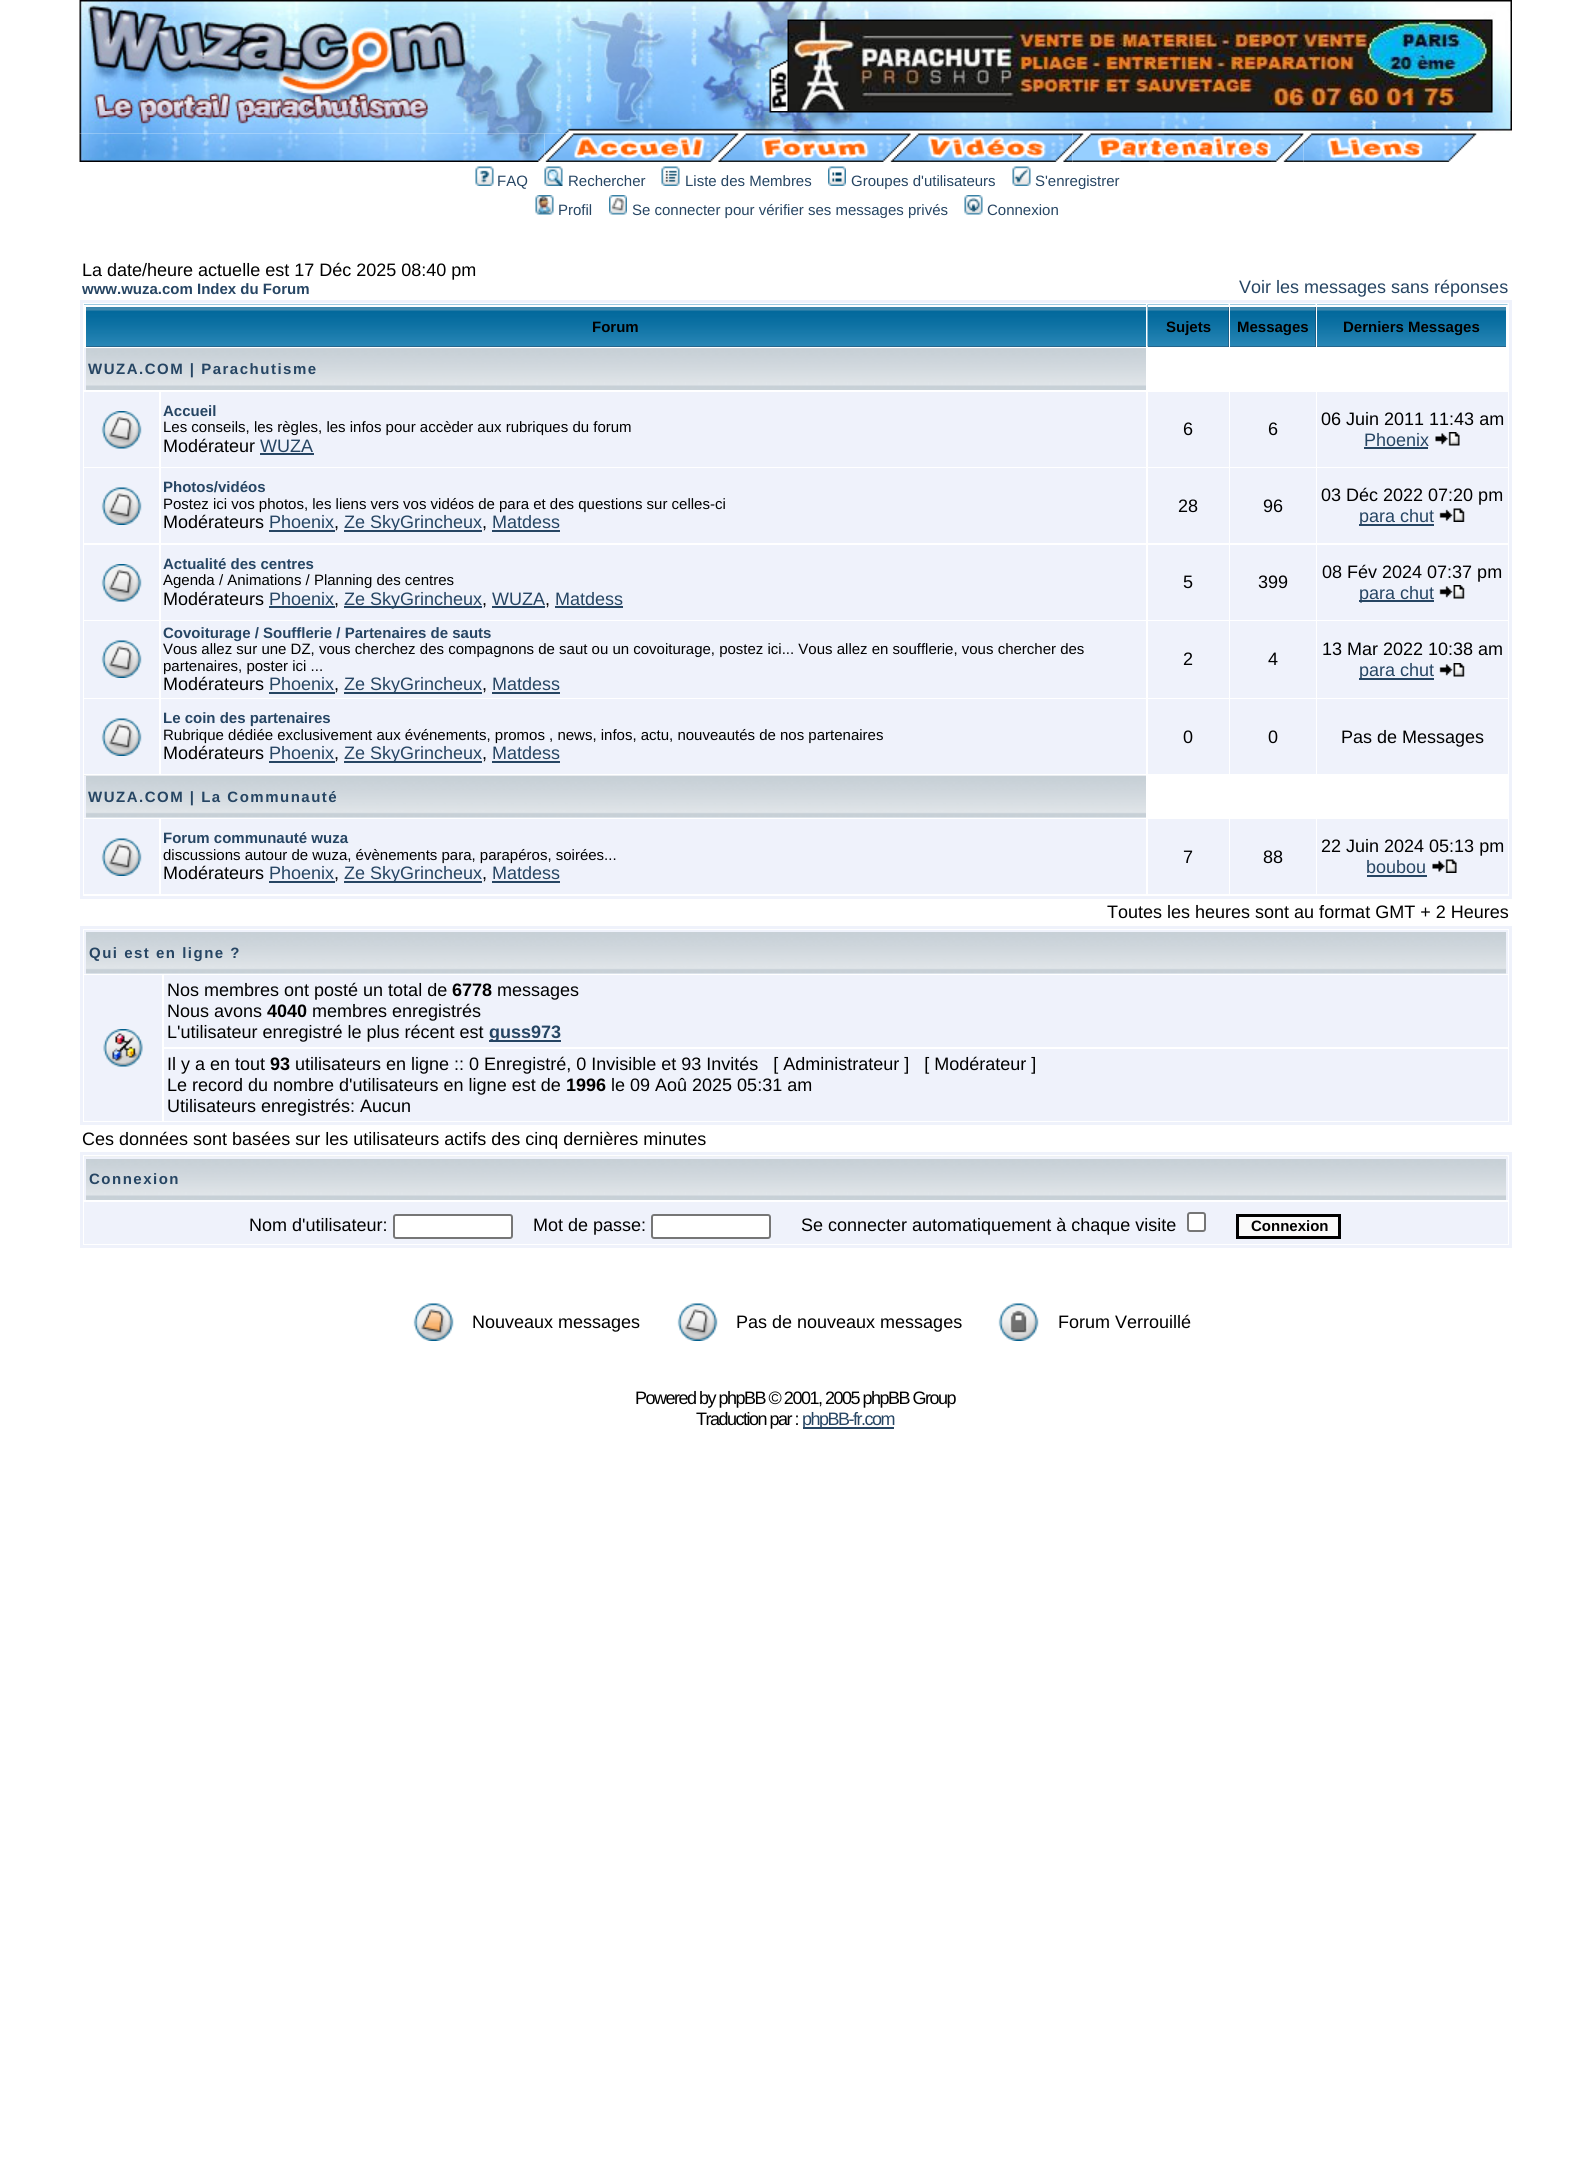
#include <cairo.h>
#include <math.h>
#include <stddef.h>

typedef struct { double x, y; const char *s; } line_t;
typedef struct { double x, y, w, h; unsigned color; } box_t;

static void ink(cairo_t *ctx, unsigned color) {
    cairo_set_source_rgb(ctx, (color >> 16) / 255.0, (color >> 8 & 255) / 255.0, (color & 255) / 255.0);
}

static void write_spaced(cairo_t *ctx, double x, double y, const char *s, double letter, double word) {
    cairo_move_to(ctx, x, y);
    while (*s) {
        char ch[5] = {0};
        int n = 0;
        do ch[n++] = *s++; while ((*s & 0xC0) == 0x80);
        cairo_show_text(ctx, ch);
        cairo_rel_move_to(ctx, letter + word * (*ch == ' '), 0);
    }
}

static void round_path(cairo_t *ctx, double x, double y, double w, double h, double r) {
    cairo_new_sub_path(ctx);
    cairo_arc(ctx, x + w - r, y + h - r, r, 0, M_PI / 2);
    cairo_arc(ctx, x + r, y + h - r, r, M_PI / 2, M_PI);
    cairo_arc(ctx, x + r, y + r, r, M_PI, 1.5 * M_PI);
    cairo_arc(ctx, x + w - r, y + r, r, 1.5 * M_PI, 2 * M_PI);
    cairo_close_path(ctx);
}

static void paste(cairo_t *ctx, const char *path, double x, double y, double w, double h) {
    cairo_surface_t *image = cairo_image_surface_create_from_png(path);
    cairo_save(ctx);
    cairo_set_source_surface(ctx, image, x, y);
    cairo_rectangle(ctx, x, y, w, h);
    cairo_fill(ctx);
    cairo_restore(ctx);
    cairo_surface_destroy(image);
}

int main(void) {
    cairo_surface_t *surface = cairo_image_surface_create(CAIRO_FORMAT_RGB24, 1589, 2184);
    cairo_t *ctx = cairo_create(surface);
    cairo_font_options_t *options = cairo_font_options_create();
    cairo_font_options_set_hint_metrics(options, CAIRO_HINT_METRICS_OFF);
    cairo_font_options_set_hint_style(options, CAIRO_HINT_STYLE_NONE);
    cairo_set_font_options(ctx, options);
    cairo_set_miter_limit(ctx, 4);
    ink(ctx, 0xFFFFFF);
    cairo_paint(ctx);
    paste(ctx, "media/1.png", 79, 0, 1433, 21);
    paste(ctx, "media/2.png", 79, 21, 710, 90);
    paste(ctx, "media/3.png", 789, 21, 702, 90);
    paste(ctx, "media/4.png", 1491, 21, 21, 90);
    paste(ctx, "media/6.png", 79, 133, 466, 29);
    paste(ctx, "media/5.png", 79, 111, 1433, 23);
    paste(ctx, "media/7.png", 544, 133, 185, 29);
    paste(ctx, "media/8.png", 729, 133, 168, 29);
    paste(ctx, "media/9.png", 897, 133, 176, 29);
    paste(ctx, "media/10.png", 1072, 133, 232, 29);
    paste(ctx, "media/11.png", 1303, 133, 174, 29);
    paste(ctx, "media/12.png", 475, 166, 19, 20);
    cairo_select_font_face(ctx, "Liberation Sans", CAIRO_FONT_SLANT_NORMAL, CAIRO_FONT_WEIGHT_NORMAL);
    cairo_set_font_size(ctx, 15);
    ink(ctx, 0x264563);
    cairo_move_to(ctx, 497, 186);
    cairo_show_text(ctx, "FAQ");
    paste(ctx, "media/13.png", 544, 166, 19, 20);
    cairo_move_to(ctx, 568, 186);
    cairo_show_text(ctx, "Rechercher");
    paste(ctx, "media/14.png", 661, 166, 19, 20);
    cairo_move_to(ctx, 685, 186);
    cairo_show_text(ctx, "Liste des Membres");
    paste(ctx, "media/15.png", 828, 166, 18, 20);
    cairo_move_to(ctx, 851, 186);
    cairo_show_text(ctx, "Groupes d'utilisateurs");
    paste(ctx, "media/16.png", 1012, 166, 19, 20);
    cairo_move_to(ctx, 1035, 186);
    cairo_show_text(ctx, "S'enregistrer");
    paste(ctx, "media/17.png", 535, 195, 19, 20);
    cairo_move_to(ctx, 558, 215);
    cairo_show_text(ctx, "Profil");
    paste(ctx, "media/18.png", 609, 195, 18, 20);
    cairo_move_to(ctx, 632, 215);
    cairo_show_text(ctx, "Se connecter pour vérifier ses messages privés");
    paste(ctx, "media/19.png", 964, 195, 19, 20);
    cairo_move_to(ctx, 987, 215);
    cairo_show_text(ctx, "Connexion");
    cairo_set_font_size(ctx, 18);
    ink(ctx, 0x000000);
    cairo_move_to(ctx, 82, 276);
    cairo_show_text(ctx, "La date/heure actuelle est 17 Déc 2025 08:40 pm");
    cairo_select_font_face(ctx, "Liberation Sans", CAIRO_FONT_SLANT_NORMAL, CAIRO_FONT_WEIGHT_BOLD);
    cairo_set_font_size(ctx, 15);
    ink(ctx, 0x264563);
    cairo_move_to(ctx, 82, 294);
    cairo_show_text(ctx, "www.wuza.com Index du Forum");
    cairo_select_font_face(ctx, "Liberation Sans", CAIRO_FONT_SLANT_NORMAL, CAIRO_FONT_WEIGHT_NORMAL);
    cairo_set_font_size(ctx, 18);
    cairo_move_to(ctx, 1239, 293);
    cairo_show_text(ctx, "Voir les messages sans réponses");
    cairo_rectangle(ctx, 81.5, 301.5, 1429, 596);
    ink(ctx, 0xEFF2FB);
    cairo_set_line_width(ctx, 3);
    cairo_stroke(ctx);
    ink(ctx, 0x264563);
    cairo_rectangle(ctx, 86, 346, 1060, 1);
    cairo_fill(ctx);
    paste(ctx, "media/20.png", 84, 304, 1062, 43);
    ink(ctx, 0xFFFFFF);
    cairo_rectangle(ctx, 84, 305, 1062, 2);
    cairo_fill(ctx);
    cairo_rectangle(ctx, 84, 305, 2, 42);
    cairo_fill(ctx);
    cairo_select_font_face(ctx, "Liberation Sans", CAIRO_FONT_SLANT_NORMAL, CAIRO_FONT_WEIGHT_BOLD);
    cairo_set_font_size(ctx, 15);
    ink(ctx, 0x000000);
    cairo_move_to(ctx, 592, 332);
    cairo_show_text(ctx, "Forum");
    ink(ctx, 0x264563);
    cairo_rectangle(ctx, 1148, 307, 81, 40);
    cairo_fill(ctx);
    paste(ctx, "media/21.png", 1147, 304, 82, 43);
    ink(ctx, 0xFFFFFF);
    cairo_rectangle(ctx, 1148, 305, 81, 2);
    cairo_fill(ctx);
    ink(ctx, 0x000000);
    cairo_move_to(ctx, 1166, 332);
    cairo_show_text(ctx, "Sujets");
    ink(ctx, 0x264563);
    cairo_rectangle(ctx, 1230, 307, 86, 40);
    cairo_fill(ctx);
    paste(ctx, "media/22.png", 1230, 304, 86, 43);
    ink(ctx, 0xFFFFFF);
    cairo_rectangle(ctx, 1230, 305, 86, 2);
    cairo_fill(ctx);
    ink(ctx, 0x000000);
    cairo_move_to(ctx, 1237, 332);
    cairo_show_text(ctx, "Messages");
    ink(ctx, 0x264563);
    cairo_rectangle(ctx, 1317, 346, 189, 1);
    cairo_fill(ctx);
    paste(ctx, "media/23.png", 1317, 304, 191, 43);
    ink(ctx, 0xFFFFFF);
    cairo_rectangle(ctx, 1317, 305, 191, 2);
    cairo_fill(ctx);
    cairo_rectangle(ctx, 1506, 305, 2, 42);
    cairo_fill(ctx);
    ink(ctx, 0x000000);
    cairo_move_to(ctx, 1343, 332);
    cairo_show_text(ctx, "Derniers Messages");
    paste(ctx, "media/24.png", 86, 348, 1060, 42);
    ink(ctx, 0xEFF2FB);
    cairo_rectangle(ctx, 84, 348, 2, 42);
    cairo_fill(ctx);
    ink(ctx, 0x264563);
    write_spaced(ctx, 88, 374, "WUZA.COM | Parachutisme", 1.5, 0);
    ink(ctx, 0xEFF2FB);
    cairo_rectangle(ctx, 84, 392, 75, 75);
    cairo_fill(ctx);
    paste(ctx, "media/25.png", 101, 411, 41, 38);
    cairo_rectangle(ctx, 161, 392, 985, 75);
    cairo_fill(ctx);
    ink(ctx, 0x264563);
    cairo_move_to(ctx, 163, 416);
    cairo_show_text(ctx, "Accueil");
    cairo_select_font_face(ctx, "Liberation Sans", CAIRO_FONT_SLANT_NORMAL, CAIRO_FONT_WEIGHT_NORMAL);
    ink(ctx, 0x000000);
    cairo_move_to(ctx, 163, 432);
    cairo_show_text(ctx, "Les conseils, les règles, les infos pour accèder aux rubriques du forum");
    cairo_set_font_size(ctx, 18);
    cairo_move_to(ctx, 163, 452);
    cairo_show_text(ctx, "Modérateur");
    ink(ctx, 0x264563);
    cairo_move_to(ctx, 260, 452);
    cairo_show_text(ctx, "WUZA");
    cairo_rectangle(ctx, 260, 453, 54, 2);
    cairo_fill(ctx);
    ink(ctx, 0xEFF2FB);
    cairo_rectangle(ctx, 1148, 392, 81, 75);
    cairo_fill(ctx);
    ink(ctx, 0x000000);
    cairo_move_to(ctx, 1183, 435);
    cairo_show_text(ctx, "6");
    ink(ctx, 0xEFF2FB);
    cairo_rectangle(ctx, 1230, 392, 86, 75);
    cairo_fill(ctx);
    ink(ctx, 0x000000);
    cairo_move_to(ctx, 1268, 435);
    cairo_show_text(ctx, "6");
    ink(ctx, 0xEFF2FB);
    cairo_rectangle(ctx, 1317, 392, 191, 75);
    cairo_fill(ctx);
    ink(ctx, 0x000000);
    cairo_move_to(ctx, 1321, 425);
    cairo_show_text(ctx, "06 Juin 2011 11:43 am");
    ink(ctx, 0x264563);
    cairo_move_to(ctx, 1364, 446);
    cairo_show_text(ctx, "Phoenix");
    cairo_rectangle(ctx, 1364, 447, 64, 2);
    cairo_fill(ctx);
    paste(ctx, "media/26.png", 1435, 432, 25, 14);
    ink(ctx, 0xEFF2FB);
    cairo_rectangle(ctx, 84, 468, 75, 75);
    cairo_fill(ctx);
    paste(ctx, "media/27.png", 101, 487, 41, 38);
    cairo_rectangle(ctx, 161, 468, 985, 75);
    cairo_fill(ctx);
    cairo_select_font_face(ctx, "Liberation Sans", CAIRO_FONT_SLANT_NORMAL, CAIRO_FONT_WEIGHT_BOLD);
    cairo_set_font_size(ctx, 15);
    ink(ctx, 0x264563);
    cairo_move_to(ctx, 163, 492);
    cairo_show_text(ctx, "Photos/vidéos");
    cairo_select_font_face(ctx, "Liberation Sans", CAIRO_FONT_SLANT_NORMAL, CAIRO_FONT_WEIGHT_NORMAL);
    ink(ctx, 0x000000);
    cairo_move_to(ctx, 163, 509);
    cairo_show_text(ctx, "Postez ici vos photos, les liens vers vos vidéos de para et des questions sur celles-ci");
    cairo_set_font_size(ctx, 18);
    cairo_move_to(ctx, 163, 528);
    cairo_show_text(ctx, "Modérateurs");
    ink(ctx, 0x264563);
    cairo_move_to(ctx, 269, 528);
    cairo_show_text(ctx, "Phoenix");
    ink(ctx, 0x000000);
    cairo_move_to(ctx, 334, 528);
    cairo_show_text(ctx, ",");
    ink(ctx, 0x264563);
    cairo_rectangle(ctx, 269, 530, 66, 2);
    cairo_fill(ctx);
    cairo_rectangle(ctx, 344, 530, 138, 2);
    cairo_fill(ctx);
    cairo_move_to(ctx, 344, 528);
    cairo_show_text(ctx, "Ze SkyGrincheux");
    ink(ctx, 0x000000);
    cairo_move_to(ctx, 482, 528);
    cairo_show_text(ctx, ",");
    ink(ctx, 0x264563);
    cairo_rectangle(ctx, 492, 530, 68, 2);
    cairo_fill(ctx);
    cairo_move_to(ctx, 492, 528);
    cairo_show_text(ctx, "Matdess");
    ink(ctx, 0xEFF2FB);
    cairo_rectangle(ctx, 1148, 468, 81, 75);
    cairo_fill(ctx);
    ink(ctx, 0x000000);
    cairo_move_to(ctx, 1178, 512);
    cairo_show_text(ctx, "28");
    ink(ctx, 0xEFF2FB);
    cairo_rectangle(ctx, 1230, 468, 86, 75);
    cairo_fill(ctx);
    ink(ctx, 0x000000);
    cairo_move_to(ctx, 1263, 512);
    cairo_show_text(ctx, "96");
    ink(ctx, 0xEFF2FB);
    cairo_rectangle(ctx, 1317, 468, 191, 75);
    cairo_fill(ctx);
    ink(ctx, 0x000000);
    cairo_move_to(ctx, 1321, 501);
    cairo_show_text(ctx, "03 Déc 2022 07:20 pm");
    ink(ctx, 0x264563);
    cairo_rectangle(ctx, 1359, 524, 75, 2);
    cairo_fill(ctx);
    cairo_move_to(ctx, 1359, 522);
    cairo_show_text(ctx, "para chut");
    paste(ctx, "media/28.png", 1439, 508, 26, 14);
    ink(ctx, 0xEFF2FB);
    cairo_rectangle(ctx, 84, 545, 75, 75);
    cairo_fill(ctx);
    paste(ctx, "media/25.png", 101, 564, 41, 38);
    cairo_rectangle(ctx, 161, 545, 985, 75);
    cairo_fill(ctx);
    cairo_select_font_face(ctx, "Liberation Sans", CAIRO_FONT_SLANT_NORMAL, CAIRO_FONT_WEIGHT_BOLD);
    cairo_set_font_size(ctx, 15);
    ink(ctx, 0x264563);
    cairo_move_to(ctx, 163, 569);
    cairo_show_text(ctx, "Actualité des centres");
    cairo_select_font_face(ctx, "Liberation Sans", CAIRO_FONT_SLANT_NORMAL, CAIRO_FONT_WEIGHT_NORMAL);
    ink(ctx, 0x000000);
    cairo_move_to(ctx, 163, 585);
    cairo_show_text(ctx, "Agenda / Animations / Planning des centres");
    cairo_set_font_size(ctx, 18);
    cairo_move_to(ctx, 163, 605);
    cairo_show_text(ctx, "Modérateurs");
    ink(ctx, 0x264563);
    cairo_move_to(ctx, 269, 605);
    cairo_show_text(ctx, "Phoenix");
    ink(ctx, 0x000000);
    cairo_move_to(ctx, 334, 605);
    cairo_show_text(ctx, ",");
    ink(ctx, 0x264563);
    cairo_rectangle(ctx, 269, 606, 66, 2);
    cairo_fill(ctx);
    cairo_rectangle(ctx, 344, 606, 138, 2);
    cairo_fill(ctx);
    cairo_move_to(ctx, 344, 605);
    cairo_show_text(ctx, "Ze SkyGrincheux");
    ink(ctx, 0x000000);
    cairo_move_to(ctx, 482, 605);
    cairo_show_text(ctx, ",");
    ink(ctx, 0x264563);
    cairo_move_to(ctx, 492, 605);
    cairo_show_text(ctx, "WUZA");
    ink(ctx, 0x000000);
    cairo_move_to(ctx, 545, 605);
    cairo_show_text(ctx, ",");
    ink(ctx, 0x264563);
    cairo_rectangle(ctx, 492, 606, 53, 2);
    cairo_fill(ctx);
    cairo_rectangle(ctx, 555, 606, 68, 2);
    cairo_fill(ctx);
    cairo_move_to(ctx, 555, 605);
    cairo_show_text(ctx, "Matdess");
    ink(ctx, 0xEFF2FB);
    cairo_rectangle(ctx, 1148, 545, 81, 75);
    cairo_fill(ctx);
    ink(ctx, 0x000000);
    cairo_move_to(ctx, 1183, 588);
    cairo_show_text(ctx, "5");
    ink(ctx, 0xEFF2FB);
    cairo_rectangle(ctx, 1230, 545, 86, 75);
    cairo_fill(ctx);
    ink(ctx, 0x000000);
    cairo_move_to(ctx, 1258, 588);
    cairo_show_text(ctx, "399");
    ink(ctx, 0xEFF2FB);
    cairo_rectangle(ctx, 1317, 545, 191, 75);
    cairo_fill(ctx);
    ink(ctx, 0x000000);
    cairo_move_to(ctx, 1322, 578);
    cairo_show_text(ctx, "08 Fév 2024 07:37 pm");
    ink(ctx, 0x264563);
    cairo_rectangle(ctx, 1359, 600, 75, 2);
    cairo_fill(ctx);
    cairo_move_to(ctx, 1359, 599);
    cairo_show_text(ctx, "para chut");
    paste(ctx, "media/29.png", 1439, 585, 26, 14);
    ink(ctx, 0xEFF2FB);
    cairo_rectangle(ctx, 84, 621, 75, 77);
    cairo_fill(ctx);
    paste(ctx, "media/27.png", 101, 640, 41, 38);
    cairo_rectangle(ctx, 161, 621, 985, 77);
    cairo_fill(ctx);
    cairo_select_font_face(ctx, "Liberation Sans", CAIRO_FONT_SLANT_NORMAL, CAIRO_FONT_WEIGHT_BOLD);
    cairo_set_font_size(ctx, 15);
    ink(ctx, 0x264563);
    cairo_move_to(ctx, 163, 638);
    cairo_show_text(ctx, "Covoiturage / Soufflerie / Partenaires de sauts");
    cairo_select_font_face(ctx, "Liberation Sans", CAIRO_FONT_SLANT_NORMAL, CAIRO_FONT_WEIGHT_NORMAL);
    ink(ctx, 0x000000);
    cairo_move_to(ctx, 163, 654);
    cairo_show_text(ctx, "Vous allez sur une DZ, vous cherchez des compagnons de saut ou un covoiturage, postez ici... Vous allez en soufflerie, vous chercher des");
    cairo_move_to(ctx, 163, 671);
    cairo_show_text(ctx, "partenaires, poster ici ...");
    cairo_set_font_size(ctx, 18);
    cairo_move_to(ctx, 163, 690);
    cairo_show_text(ctx, "Modérateurs");
    ink(ctx, 0x264563);
    cairo_move_to(ctx, 269, 690);
    cairo_show_text(ctx, "Phoenix");
    ink(ctx, 0x000000);
    cairo_move_to(ctx, 334, 690);
    cairo_show_text(ctx, ",");
    ink(ctx, 0x264563);
    cairo_rectangle(ctx, 269, 692, 66, 2);
    cairo_fill(ctx);
    cairo_rectangle(ctx, 344, 692, 138, 2);
    cairo_fill(ctx);
    cairo_move_to(ctx, 344, 690);
    cairo_show_text(ctx, "Ze SkyGrincheux");
    ink(ctx, 0x000000);
    cairo_move_to(ctx, 482, 690);
    cairo_show_text(ctx, ",");
    ink(ctx, 0x264563);
    cairo_rectangle(ctx, 492, 692, 68, 2);
    cairo_fill(ctx);
    cairo_move_to(ctx, 492, 690);
    cairo_show_text(ctx, "Matdess");
    ink(ctx, 0xEFF2FB);
    cairo_rectangle(ctx, 1148, 621, 81, 77);
    cairo_fill(ctx);
    ink(ctx, 0x000000);
    cairo_move_to(ctx, 1183, 665);
    cairo_show_text(ctx, "2");
    ink(ctx, 0xEFF2FB);
    cairo_rectangle(ctx, 1230, 621, 86, 77);
    cairo_fill(ctx);
    ink(ctx, 0x000000);
    cairo_move_to(ctx, 1268, 665);
    cairo_show_text(ctx, "4");
    ink(ctx, 0xEFF2FB);
    cairo_rectangle(ctx, 1317, 621, 191, 77);
    cairo_fill(ctx);
    ink(ctx, 0x000000);
    cairo_move_to(ctx, 1322, 655);
    cairo_show_text(ctx, "13 Mar 2022 10:38 am");
    ink(ctx, 0x264563);
    cairo_rectangle(ctx, 1359, 678, 75, 2);
    cairo_fill(ctx);
    cairo_move_to(ctx, 1359, 676);
    cairo_show_text(ctx, "para chut");
    paste(ctx, "media/29.png", 1439, 663, 26, 14);
    ink(ctx, 0xEFF2FB);
    cairo_rectangle(ctx, 84, 699, 75, 75);
    cairo_fill(ctx);
    paste(ctx, "media/27.png", 101, 718, 41, 38);
    cairo_rectangle(ctx, 161, 699, 985, 75);
    cairo_fill(ctx);
    cairo_select_font_face(ctx, "Liberation Sans", CAIRO_FONT_SLANT_NORMAL, CAIRO_FONT_WEIGHT_BOLD);
    cairo_set_font_size(ctx, 15);
    ink(ctx, 0x264563);
    cairo_move_to(ctx, 163, 723);
    cairo_show_text(ctx, "Le coin des partenaires");
    cairo_select_font_face(ctx, "Liberation Sans", CAIRO_FONT_SLANT_NORMAL, CAIRO_FONT_WEIGHT_NORMAL);
    ink(ctx, 0x000000);
    cairo_move_to(ctx, 163, 740);
    cairo_show_text(ctx, "Rubrique dédiée exclusivement aux événements, promos , news, infos, actu, nouveautés de nos partenaires");
    cairo_set_font_size(ctx, 18);
    cairo_move_to(ctx, 163, 759);
    cairo_show_text(ctx, "Modérateurs");
    ink(ctx, 0x264563);
    cairo_move_to(ctx, 269, 759);
    cairo_show_text(ctx, "Phoenix");
    ink(ctx, 0x000000);
    cairo_move_to(ctx, 334, 759);
    cairo_show_text(ctx, ",");
    ink(ctx, 0x264563);
    cairo_rectangle(ctx, 269, 761, 66, 2);
    cairo_fill(ctx);
    cairo_rectangle(ctx, 344, 761, 138, 2);
    cairo_fill(ctx);
    cairo_move_to(ctx, 344, 759);
    cairo_show_text(ctx, "Ze SkyGrincheux");
    ink(ctx, 0x000000);
    cairo_move_to(ctx, 482, 759);
    cairo_show_text(ctx, ",");
    ink(ctx, 0x264563);
    cairo_rectangle(ctx, 492, 761, 68, 2);
    cairo_fill(ctx);
    cairo_move_to(ctx, 492, 759);
    cairo_show_text(ctx, "Matdess");
    ink(ctx, 0xEFF2FB);
    cairo_rectangle(ctx, 1148, 699, 81, 75);
    cairo_fill(ctx);
    ink(ctx, 0x000000);
    cairo_move_to(ctx, 1183, 743);
    cairo_show_text(ctx, "0");
    ink(ctx, 0xEFF2FB);
    cairo_rectangle(ctx, 1230, 699, 86, 75);
    cairo_fill(ctx);
    ink(ctx, 0x000000);
    cairo_move_to(ctx, 1268, 743);
    cairo_show_text(ctx, "0");
    ink(ctx, 0xEFF2FB);
    cairo_rectangle(ctx, 1317, 699, 191, 75);
    cairo_fill(ctx);
    ink(ctx, 0x000000);
    cairo_move_to(ctx, 1341, 743);
    cairo_show_text(ctx, "Pas de Messages");
    ink(ctx, 0xEFF2FB);
    cairo_rectangle(ctx, 86, 817, 1060, 1);
    cairo_fill(ctx);
    paste(ctx, "media/30.png", 84, 775, 1062, 43);
    cairo_rectangle(ctx, 84, 776, 2, 42);
    cairo_fill(ctx);
    cairo_select_font_face(ctx, "Liberation Sans", CAIRO_FONT_SLANT_NORMAL, CAIRO_FONT_WEIGHT_BOLD);
    cairo_set_font_size(ctx, 15);
    ink(ctx, 0x264563);
    write_spaced(ctx, 88, 802, "WUZA.COM | La Communauté", 1.5, 0);
    ink(ctx, 0xEFF2FB);
    cairo_rectangle(ctx, 84, 819, 75, 75);
    cairo_fill(ctx);
    paste(ctx, "media/27.png", 101, 838, 41, 38);
    cairo_rectangle(ctx, 161, 819, 985, 75);
    cairo_fill(ctx);
    ink(ctx, 0x264563);
    cairo_move_to(ctx, 163, 843);
    cairo_show_text(ctx, "Forum communauté wuza");
    cairo_select_font_face(ctx, "Liberation Sans", CAIRO_FONT_SLANT_NORMAL, CAIRO_FONT_WEIGHT_NORMAL);
    ink(ctx, 0x000000);
    cairo_move_to(ctx, 163, 860);
    cairo_show_text(ctx, "discussions autour de wuza, évènements para, parapéros, soirées...");
    cairo_set_font_size(ctx, 18);
    cairo_move_to(ctx, 163, 879);
    cairo_show_text(ctx, "Modérateurs");
    ink(ctx, 0x264563);
    cairo_move_to(ctx, 269, 879);
    cairo_show_text(ctx, "Phoenix");
    ink(ctx, 0x000000);
    cairo_move_to(ctx, 334, 879);
    cairo_show_text(ctx, ",");
    ink(ctx, 0x264563);
    cairo_rectangle(ctx, 269, 881, 66, 2);
    cairo_fill(ctx);
    cairo_rectangle(ctx, 344, 881, 138, 2);
    cairo_fill(ctx);
    cairo_move_to(ctx, 344, 879);
    cairo_show_text(ctx, "Ze SkyGrincheux");
    ink(ctx, 0x000000);
    cairo_move_to(ctx, 482, 879);
    cairo_show_text(ctx, ",");
    ink(ctx, 0x264563);
    cairo_rectangle(ctx, 492, 881, 68, 2);
    cairo_fill(ctx);
    cairo_move_to(ctx, 492, 879);
    cairo_show_text(ctx, "Matdess");
    ink(ctx, 0xEFF2FB);
    cairo_rectangle(ctx, 1148, 819, 81, 75);
    cairo_fill(ctx);
    ink(ctx, 0x000000);
    cairo_move_to(ctx, 1183, 863);
    cairo_show_text(ctx, "7");
    ink(ctx, 0xEFF2FB);
    cairo_rectangle(ctx, 1230, 819, 86, 75);
    cairo_fill(ctx);
    ink(ctx, 0x000000);
    cairo_move_to(ctx, 1263, 863);
    cairo_show_text(ctx, "88");
    ink(ctx, 0xEFF2FB);
    cairo_rectangle(ctx, 1317, 819, 191, 75);
    cairo_fill(ctx);
    ink(ctx, 0x000000);
    cairo_move_to(ctx, 1321, 852);
    cairo_show_text(ctx, "22 Juin 2024 05:13 pm");
    ink(ctx, 0x264563);
    cairo_move_to(ctx, 1366, 873);
    cairo_show_text(ctx, "boubou");
    cairo_rectangle(ctx, 1367, 875, 60, 2);
    cairo_fill(ctx);
    paste(ctx, "media/31.png", 1432, 859, 25, 14);
    ink(ctx, 0x000000);
    cairo_move_to(ctx, 1107, 918);
    cairo_show_text(ctx, "Toutes les heures sont au format GMT + 2 Heures");
    cairo_rectangle(ctx, 81.5, 927.5, 1429, 196);
    ink(ctx, 0xEFF2FB);
    cairo_stroke(ctx);
    cairo_rectangle(ctx, 86, 973, 1420, 1);
    cairo_fill(ctx);
    paste(ctx, "media/32.png", 86, 932, 1420, 42);
    {
        static const box_t items[] = {
            {84, 930, 1424, 2, 0xEFF2FB},
            {1506, 930, 2, 44, 0xEFF2FB},
            {84, 930, 2, 44, 0xEFF2FB},
        };
        for (size_t i = 0; i < sizeof items / sizeof *items; i++) {
            ink(ctx, items[i].color);
            cairo_rectangle(ctx, items[i].x, items[i].y, items[i].w, items[i].h);
            cairo_fill(ctx);
        }
    }
    cairo_select_font_face(ctx, "Liberation Sans", CAIRO_FONT_SLANT_NORMAL, CAIRO_FONT_WEIGHT_BOLD);
    cairo_set_font_size(ctx, 15);
    ink(ctx, 0x264563);
    write_spaced(ctx, 89, 958, "Qui est en ligne ?", 1.5, 0);
    ink(ctx, 0xEFF2FB);
    cairo_rectangle(ctx, 84, 975, 78, 146);
    cairo_fill(ctx);
    paste(ctx, "media/33.png", 103, 1029, 40, 38);
    cairo_rectangle(ctx, 164, 975, 1344, 72);
    cairo_fill(ctx);
    cairo_select_font_face(ctx, "Liberation Sans", CAIRO_FONT_SLANT_NORMAL, CAIRO_FONT_WEIGHT_NORMAL);
    cairo_set_font_size(ctx, 18);
    ink(ctx, 0x000000);
    cairo_move_to(ctx, 167, 996);
    cairo_show_text(ctx, "Nos membres ont posté un total de");
    cairo_select_font_face(ctx, "Liberation Sans", CAIRO_FONT_SLANT_NORMAL, CAIRO_FONT_WEIGHT_BOLD);
    cairo_move_to(ctx, 452, 996);
    cairo_show_text(ctx, "6778");
    cairo_select_font_face(ctx, "Liberation Sans", CAIRO_FONT_SLANT_NORMAL, CAIRO_FONT_WEIGHT_NORMAL);
    cairo_move_to(ctx, 497, 996);
    cairo_show_text(ctx, "messages");
    cairo_move_to(ctx, 167, 1017);
    cairo_show_text(ctx, "Nous avons");
    cairo_select_font_face(ctx, "Liberation Sans", CAIRO_FONT_SLANT_NORMAL, CAIRO_FONT_WEIGHT_BOLD);
    cairo_move_to(ctx, 267, 1017);
    cairo_show_text(ctx, "4040");
    cairo_select_font_face(ctx, "Liberation Sans", CAIRO_FONT_SLANT_NORMAL, CAIRO_FONT_WEIGHT_NORMAL);
    cairo_move_to(ctx, 312, 1017);
    cairo_show_text(ctx, "membres enregistrés");
    cairo_move_to(ctx, 167, 1038);
    cairo_show_text(ctx, "L'utilisateur enregistré le plus récent est");
    ink(ctx, 0x264563);
    cairo_rectangle(ctx, 489, 1040, 72, 2);
    cairo_fill(ctx);
    cairo_select_font_face(ctx, "Liberation Sans", CAIRO_FONT_SLANT_NORMAL, CAIRO_FONT_WEIGHT_BOLD);
    cairo_move_to(ctx, 489, 1038);
    cairo_show_text(ctx, "guss973");
    ink(ctx, 0xEFF2FB);
    cairo_rectangle(ctx, 164, 1049, 1344, 72);
    cairo_fill(ctx);
    cairo_select_font_face(ctx, "Liberation Sans", CAIRO_FONT_SLANT_NORMAL, CAIRO_FONT_WEIGHT_NORMAL);
    ink(ctx, 0x000000);
    cairo_move_to(ctx, 167, 1070);
    cairo_show_text(ctx, "Il y a en tout");
    cairo_select_font_face(ctx, "Liberation Sans", CAIRO_FONT_SLANT_NORMAL, CAIRO_FONT_WEIGHT_BOLD);
    cairo_move_to(ctx, 270, 1070);
    cairo_show_text(ctx, "93");
    cairo_select_font_face(ctx, "Liberation Sans", CAIRO_FONT_SLANT_NORMAL, CAIRO_FONT_WEIGHT_NORMAL);
    cairo_move_to(ctx, 295, 1070);
    cairo_show_text(ctx, "utilisateurs en ligne :: 0 Enregistré, 0 Invisible et 93 Invités   [ Administrateur ]   [ Modérateur ]");
    cairo_move_to(ctx, 167, 1091);
    cairo_show_text(ctx, "Le record du nombre d'utilisateurs en ligne est de");
    cairo_select_font_face(ctx, "Liberation Sans", CAIRO_FONT_SLANT_NORMAL, CAIRO_FONT_WEIGHT_BOLD);
    cairo_move_to(ctx, 566, 1091);
    cairo_show_text(ctx, "1996");
    cairo_select_font_face(ctx, "Liberation Sans", CAIRO_FONT_SLANT_NORMAL, CAIRO_FONT_WEIGHT_NORMAL);
    {
        static const line_t items[] = {
            {611, 1091, "le 09 Aoû 2025 05:31 am"},
            {167, 1112, "Utilisateurs enregistrés: Aucun"},
            {82, 1145, "Ces données sont basées sur les utilisateurs actifs des cinq dernières minutes"},
        };
        for (size_t i = 0; i < sizeof items / sizeof *items; i++) {
            cairo_move_to(ctx, items[i].x, items[i].y);
            cairo_show_text(ctx, items[i].s);
        }
    }
    cairo_rectangle(ctx, 81.5, 1153.5, 1429, 93);
    ink(ctx, 0xEFF2FB);
    cairo_stroke(ctx);
    paste(ctx, "media/34.png", 84, 1156, 1424, 44);
    {
        static const box_t items[] = {
            {84, 1157, 1424, 2, 0xEFF2FB},
            {1506, 1157, 2, 43, 0xEFF2FB},
            {84, 1157, 2, 43, 0xEFF2FB},
        };
        for (size_t i = 0; i < sizeof items / sizeof *items; i++) {
            ink(ctx, items[i].color);
            cairo_rectangle(ctx, items[i].x, items[i].y, items[i].w, items[i].h);
            cairo_fill(ctx);
        }
    }
    cairo_select_font_face(ctx, "Liberation Sans", CAIRO_FONT_SLANT_NORMAL, CAIRO_FONT_WEIGHT_BOLD);
    cairo_set_font_size(ctx, 15);
    ink(ctx, 0x264563);
    write_spaced(ctx, 89, 1184, "Connexion", 1.5, 0);
    ink(ctx, 0xEFF2FB);
    cairo_rectangle(ctx, 84, 1202, 1424, 42);
    cairo_fill(ctx);
    cairo_select_font_face(ctx, "Liberation Sans", CAIRO_FONT_SLANT_NORMAL, CAIRO_FONT_WEIGHT_NORMAL);
    cairo_set_font_size(ctx, 18);
    ink(ctx, 0x000000);
    cairo_move_to(ctx, 249, 1231);
    cairo_show_text(ctx, "Nom d'utilisateur:");
    ink(ctx, 0xFFFFFF);
    round_path(ctx, 394, 1215, 118, 23, 2);
    cairo_fill_preserve(ctx);
    ink(ctx, 0x767676);
    cairo_set_line_width(ctx, 2);
    cairo_stroke(ctx);
    ink(ctx, 0x000000);
    cairo_move_to(ctx, 533, 1231);
    cairo_show_text(ctx, "Mot de passe:");
    ink(ctx, 0xFFFFFF);
    round_path(ctx, 652, 1215, 118, 23, 2);
    cairo_fill_preserve(ctx);
    ink(ctx, 0x767676);
    cairo_stroke(ctx);
    ink(ctx, 0x000000);
    cairo_move_to(ctx, 801, 1231);
    cairo_show_text(ctx, "Se connecter automatiquement à chaque visite");
    ink(ctx, 0xFFFFFF);
    round_path(ctx, 1188, 1213, 17, 18, 2);
    cairo_fill_preserve(ctx);
    ink(ctx, 0x767676);
    cairo_stroke(ctx);
    ink(ctx, 0xFAFAFA);
    cairo_rectangle(ctx, 1237.5, 1215.5, 102, 22);
    cairo_fill_preserve(ctx);
    ink(ctx, 0x000000);
    cairo_set_line_width(ctx, 3);
    cairo_stroke(ctx);
    cairo_select_font_face(ctx, "Liberation Sans", CAIRO_FONT_SLANT_NORMAL, CAIRO_FONT_WEIGHT_BOLD);
    cairo_set_font_size(ctx, 15);
    cairo_move_to(ctx, 1251, 1231);
    cairo_show_text(ctx, "Connexion");
    paste(ctx, "media/35.png", 413, 1303, 41, 38);
    cairo_select_font_face(ctx, "Liberation Sans", CAIRO_FONT_SLANT_NORMAL, CAIRO_FONT_WEIGHT_NORMAL);
    cairo_set_font_size(ctx, 18);
    cairo_move_to(ctx, 472, 1328);
    cairo_show_text(ctx, "Nouveaux messages");
    paste(ctx, "media/36.png", 677, 1303, 41, 38);
    cairo_move_to(ctx, 736, 1328);
    cairo_show_text(ctx, "Pas de nouveaux messages");
    paste(ctx, "media/37.png", 998, 1303, 41, 38);
    cairo_move_to(ctx, 1058, 1328);
    cairo_show_text(ctx, "Forum Verrouillé");
    write_spaced(ctx, 635, 1404, "Powered by phpBB © 2001, 2005 phpBB Group", -1.5, 0);
    write_spaced(ctx, 696, 1425, "Traduction par :", -1.5, 0);
    ink(ctx, 0x264563);
    cairo_rectangle(ctx, 803, 1427, 91, 2);
    cairo_fill(ctx);
    write_spaced(ctx, 802, 1425, "phpBB-fr.com", -1.5, 0);
    cairo_surface_write_to_png(surface, "image.png");
    cairo_font_options_destroy(options);
    cairo_destroy(ctx);
    cairo_surface_destroy(surface);
    return 0;
}
